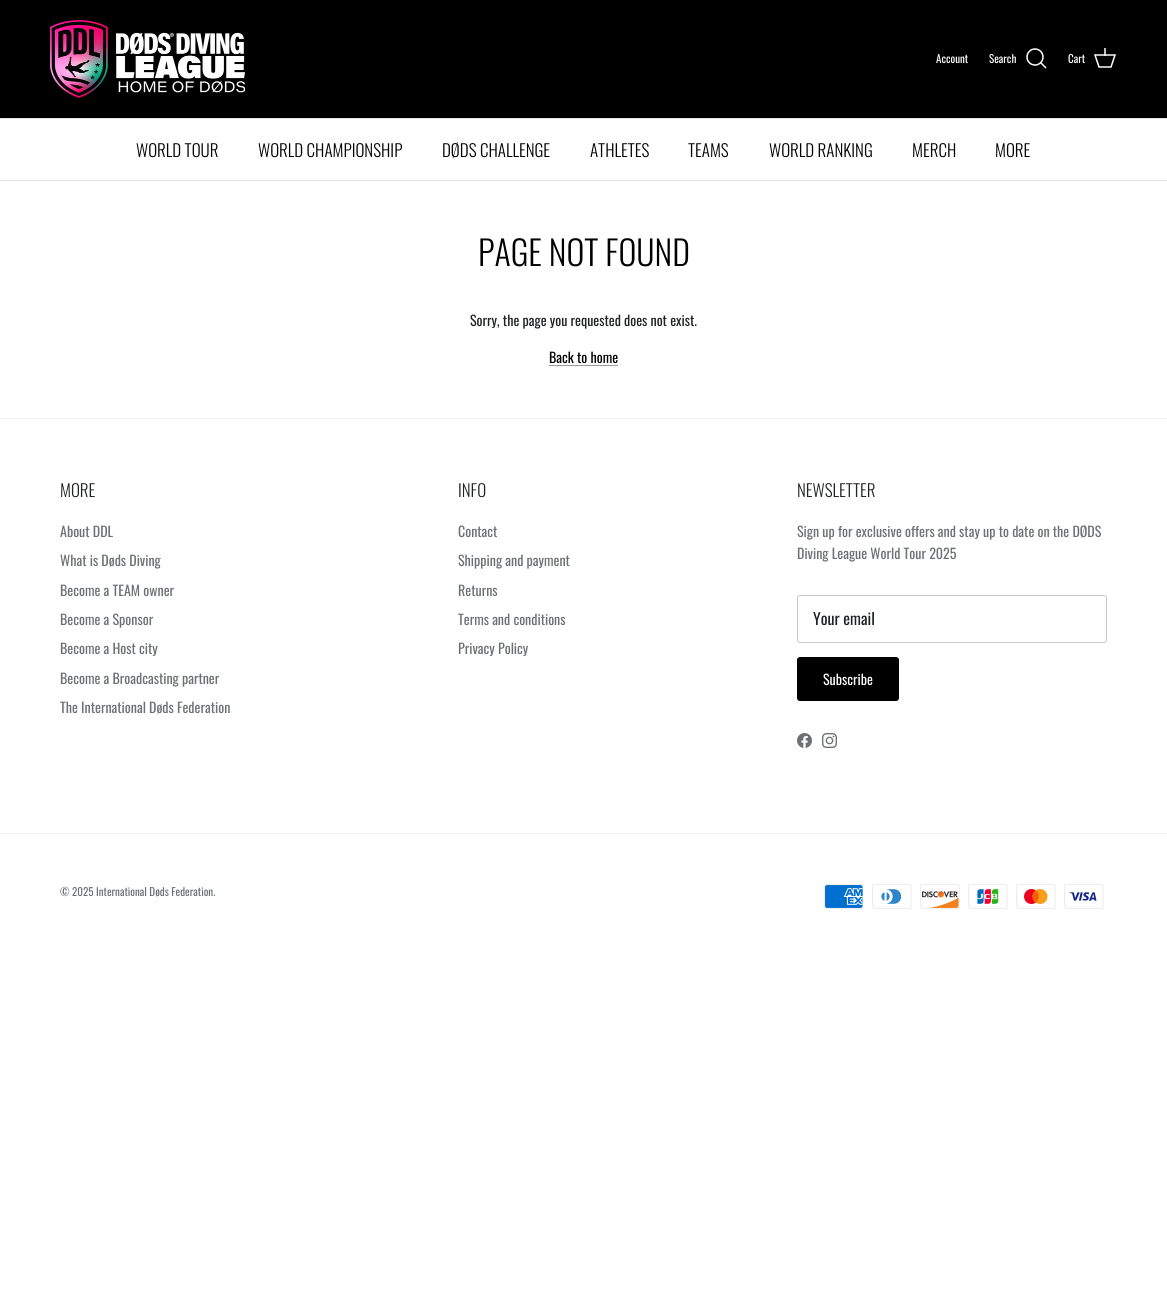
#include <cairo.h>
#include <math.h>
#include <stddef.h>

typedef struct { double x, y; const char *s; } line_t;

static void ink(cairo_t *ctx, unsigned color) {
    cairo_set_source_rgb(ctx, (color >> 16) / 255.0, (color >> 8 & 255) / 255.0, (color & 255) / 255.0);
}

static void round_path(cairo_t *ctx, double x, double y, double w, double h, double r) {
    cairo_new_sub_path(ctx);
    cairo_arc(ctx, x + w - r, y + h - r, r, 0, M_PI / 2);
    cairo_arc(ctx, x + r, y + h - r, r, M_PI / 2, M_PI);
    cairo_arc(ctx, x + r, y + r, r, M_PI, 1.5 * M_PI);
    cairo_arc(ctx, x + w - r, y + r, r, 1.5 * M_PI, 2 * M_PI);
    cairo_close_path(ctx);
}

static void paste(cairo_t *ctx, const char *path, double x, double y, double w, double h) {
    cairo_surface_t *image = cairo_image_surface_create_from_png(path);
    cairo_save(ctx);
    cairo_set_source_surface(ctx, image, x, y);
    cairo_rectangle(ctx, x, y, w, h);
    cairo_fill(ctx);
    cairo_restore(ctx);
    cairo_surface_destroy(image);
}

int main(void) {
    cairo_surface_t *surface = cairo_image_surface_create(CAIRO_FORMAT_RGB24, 1167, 1310);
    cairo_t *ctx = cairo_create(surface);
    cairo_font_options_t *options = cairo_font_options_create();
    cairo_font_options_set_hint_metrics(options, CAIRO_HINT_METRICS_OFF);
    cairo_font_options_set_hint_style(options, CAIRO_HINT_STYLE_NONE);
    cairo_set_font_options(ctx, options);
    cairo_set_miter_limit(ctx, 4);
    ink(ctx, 0xFFFFFF);
    cairo_paint(ctx);
    ink(ctx, 0x000000);
    cairo_rectangle(ctx, 0, 0, 1167, 118);
    cairo_fill(ctx);
    ink(ctx, 0xE2E2E2);
    cairo_rectangle(ctx, 0, 118, 1167, 1);
    cairo_fill(ctx);
    paste(ctx, "media/1.png", 50, 20, 195, 78);
    cairo_select_font_face(ctx, "Oswald", CAIRO_FONT_SLANT_NORMAL, CAIRO_FONT_WEIGHT_NORMAL);
    cairo_set_font_size(ctx, 11);
    ink(ctx, 0xFFFFFF);
    cairo_move_to(ctx, 936, 63);
    cairo_show_text(ctx, "Account");
    cairo_move_to(ctx, 989, 63);
    cairo_show_text(ctx, "Search");
    cairo_new_path(ctx);
    cairo_arc(ctx, 1035, 57, 8, 0, 2 * M_PI);
    cairo_set_line_width(ctx, 1.5);
    cairo_stroke(ctx);
    cairo_new_path(ctx);
    cairo_move_to(ctx, 1041, 63);
    cairo_line_to(ctx, 1045.5, 67.5);
    cairo_set_line_cap(ctx, CAIRO_LINE_CAP_SQUARE);
    cairo_stroke(ctx);
    cairo_move_to(ctx, 1068, 63);
    cairo_show_text(ctx, "Cart");
    cairo_new_path(ctx);
    cairo_move_to(ctx, 1095, 55);
    cairo_line_to(ctx, 1115, 55);
    cairo_line_to(ctx, 1111, 67);
    cairo_line_to(ctx, 1099, 67);
    cairo_close_path(ctx);
    cairo_set_line_cap(ctx, CAIRO_LINE_CAP_BUTT);
    cairo_stroke(ctx);
    cairo_set_source_rgba(ctx, 1, 1, 1, 0.75);
    cairo_rectangle(ctx, 1104, 48, 2, 8);
    cairo_fill(ctx);
    ink(ctx, 0xE2E2E2);
    cairo_rectangle(ctx, 0, 180, 1167, 1);
    cairo_fill(ctx);
    cairo_select_font_face(ctx, "Oswald Light", CAIRO_FONT_SLANT_NORMAL, CAIRO_FONT_WEIGHT_NORMAL);
    cairo_set_font_size(ctx, 17);
    ink(ctx, 0x000000);
    {
        static const line_t items[] = {
            {136, 157, "WORLD TOUR"},
            {258, 157, "WORLD CHAMPIONSHIP"},
            {442, 157, "DØDS CHALLENGE"},
            {590, 157, "ATHLETES"},
            {688, 157, "TEAMS"},
            {769, 157, "WORLD RANKING"},
            {912, 157, "MERCH"},
            {995, 157, "MORE"},
        };
        for (size_t i = 0; i < sizeof items / sizeof *items; i++) {
            cairo_move_to(ctx, items[i].x, items[i].y);
            cairo_show_text(ctx, items[i].s);
        }
    }
    cairo_set_font_size(ctx, 34);
    cairo_move_to(ctx, 478, 266);
    cairo_show_text(ctx, "PAGE NOT FOUND");
    cairo_select_font_face(ctx, "Oswald", CAIRO_FONT_SLANT_NORMAL, CAIRO_FONT_WEIGHT_NORMAL);
    cairo_set_font_size(ctx, 14);
    ink(ctx, 0x202223);
    cairo_move_to(ctx, 470, 326);
    cairo_show_text(ctx, "Sorry, the page you requested does not exist.");
    ink(ctx, 0x000000);
    cairo_move_to(ctx, 549, 363);
    cairo_show_text(ctx, "Back to home");
    ink(ctx, 0x999999);
    cairo_rectangle(ctx, 549, 365, 69, 1);
    cairo_fill(ctx);
    ink(ctx, 0xEEEEEE);
    cairo_rectangle(ctx, 0, 418, 1167, 1);
    cairo_fill(ctx);
    cairo_select_font_face(ctx, "Oswald Light", CAIRO_FONT_SLANT_NORMAL, CAIRO_FONT_WEIGHT_NORMAL);
    cairo_set_font_size(ctx, 17);
    ink(ctx, 0x202223);
    cairo_move_to(ctx, 60, 497);
    cairo_show_text(ctx, "MORE");
    cairo_select_font_face(ctx, "Oswald", CAIRO_FONT_SLANT_NORMAL, CAIRO_FONT_WEIGHT_NORMAL);
    cairo_set_font_size(ctx, 14);
    ink(ctx, 0x6D7175);
    {
        static const line_t items[] = {
            {60, 537, "About DDL"},
            {60, 566, "What is Døds Diving"},
            {60, 596, "Become a TEAM owner"},
            {60, 625, "Become a Sponsor"},
            {60, 654, "Become a Host city"},
            {60, 684, "Become a Broadcasting partner"},
            {60, 713, "The International Døds Federation"},
        };
        for (size_t i = 0; i < sizeof items / sizeof *items; i++) {
            cairo_move_to(ctx, items[i].x, items[i].y);
            cairo_show_text(ctx, items[i].s);
        }
    }
    cairo_select_font_face(ctx, "Oswald Light", CAIRO_FONT_SLANT_NORMAL, CAIRO_FONT_WEIGHT_NORMAL);
    cairo_set_font_size(ctx, 17);
    ink(ctx, 0x202223);
    cairo_move_to(ctx, 458, 497);
    cairo_show_text(ctx, "INFO");
    cairo_select_font_face(ctx, "Oswald", CAIRO_FONT_SLANT_NORMAL, CAIRO_FONT_WEIGHT_NORMAL);
    cairo_set_font_size(ctx, 14);
    ink(ctx, 0x6D7175);
    {
        static const line_t items[] = {
            {458, 537, "Contact"},
            {458, 566, "Shipping and payment"},
            {458, 596, "Returns"},
            {458, 625, "Terms and conditions"},
            {458, 654, "Privacy Policy"},
        };
        for (size_t i = 0; i < sizeof items / sizeof *items; i++) {
            cairo_move_to(ctx, items[i].x, items[i].y);
            cairo_show_text(ctx, items[i].s);
        }
    }
    cairo_select_font_face(ctx, "Oswald Light", CAIRO_FONT_SLANT_NORMAL, CAIRO_FONT_WEIGHT_NORMAL);
    cairo_set_font_size(ctx, 17);
    ink(ctx, 0x202223);
    cairo_move_to(ctx, 797, 497);
    cairo_show_text(ctx, "NEWSLETTER");
    cairo_select_font_face(ctx, "Oswald", CAIRO_FONT_SLANT_NORMAL, CAIRO_FONT_WEIGHT_NORMAL);
    cairo_set_font_size(ctx, 14);
    ink(ctx, 0x6D7175);
    cairo_move_to(ctx, 797, 537);
    cairo_show_text(ctx, "Sign up for exclusive offers and stay up to date on the DØDS");
    cairo_move_to(ctx, 797, 559);
    cairo_show_text(ctx, "Diving League World Tour 2025");
    round_path(ctx, 797.5, 595.5, 309, 47, 2.5);
    ink(ctx, 0xC7C8C8);
    cairo_set_line_width(ctx, 1);
    cairo_stroke(ctx);
    cairo_set_font_size(ctx, 16);
    ink(ctx, 0x202223);
    cairo_move_to(ctx, 813, 625);
    cairo_show_text(ctx, "Your email");
    ink(ctx, 0x000000);
    round_path(ctx, 797.5, 657.5, 101, 43, 2.5);
    cairo_fill_preserve(ctx);
    cairo_stroke(ctx);
    cairo_set_font_size(ctx, 14);
    ink(ctx, 0xFFFFFF);
    cairo_move_to(ctx, 823, 685);
    cairo_show_text(ctx, "Subscribe");
    paste(ctx, "media/2.png", 797, 733, 15, 15);
    paste(ctx, "media/3.png", 822, 733, 15, 15);
    ink(ctx, 0xEEEEEE);
    cairo_rectangle(ctx, 0, 833, 1167, 1);
    cairo_fill(ctx);
    cairo_set_font_size(ctx, 11);
    ink(ctx, 0x6D7175);
    cairo_move_to(ctx, 60, 896);
    cairo_show_text(ctx, "© 2025 International Døds Federation.");
    paste(ctx, "media/4.png", 824, 884, 39, 25);
    paste(ctx, "media/5.png", 872, 884, 40, 25);
    paste(ctx, "media/6.png", 920, 884, 40, 25);
    paste(ctx, "media/7.png", 968, 884, 40, 25);
    paste(ctx, "media/8.png", 1016, 884, 40, 25);
    paste(ctx, "media/9.png", 1064, 884, 40, 25);
    cairo_surface_write_to_png(surface, "image.png");
    cairo_font_options_destroy(options);
    cairo_destroy(ctx);
    cairo_surface_destroy(surface);
    return 0;
}
